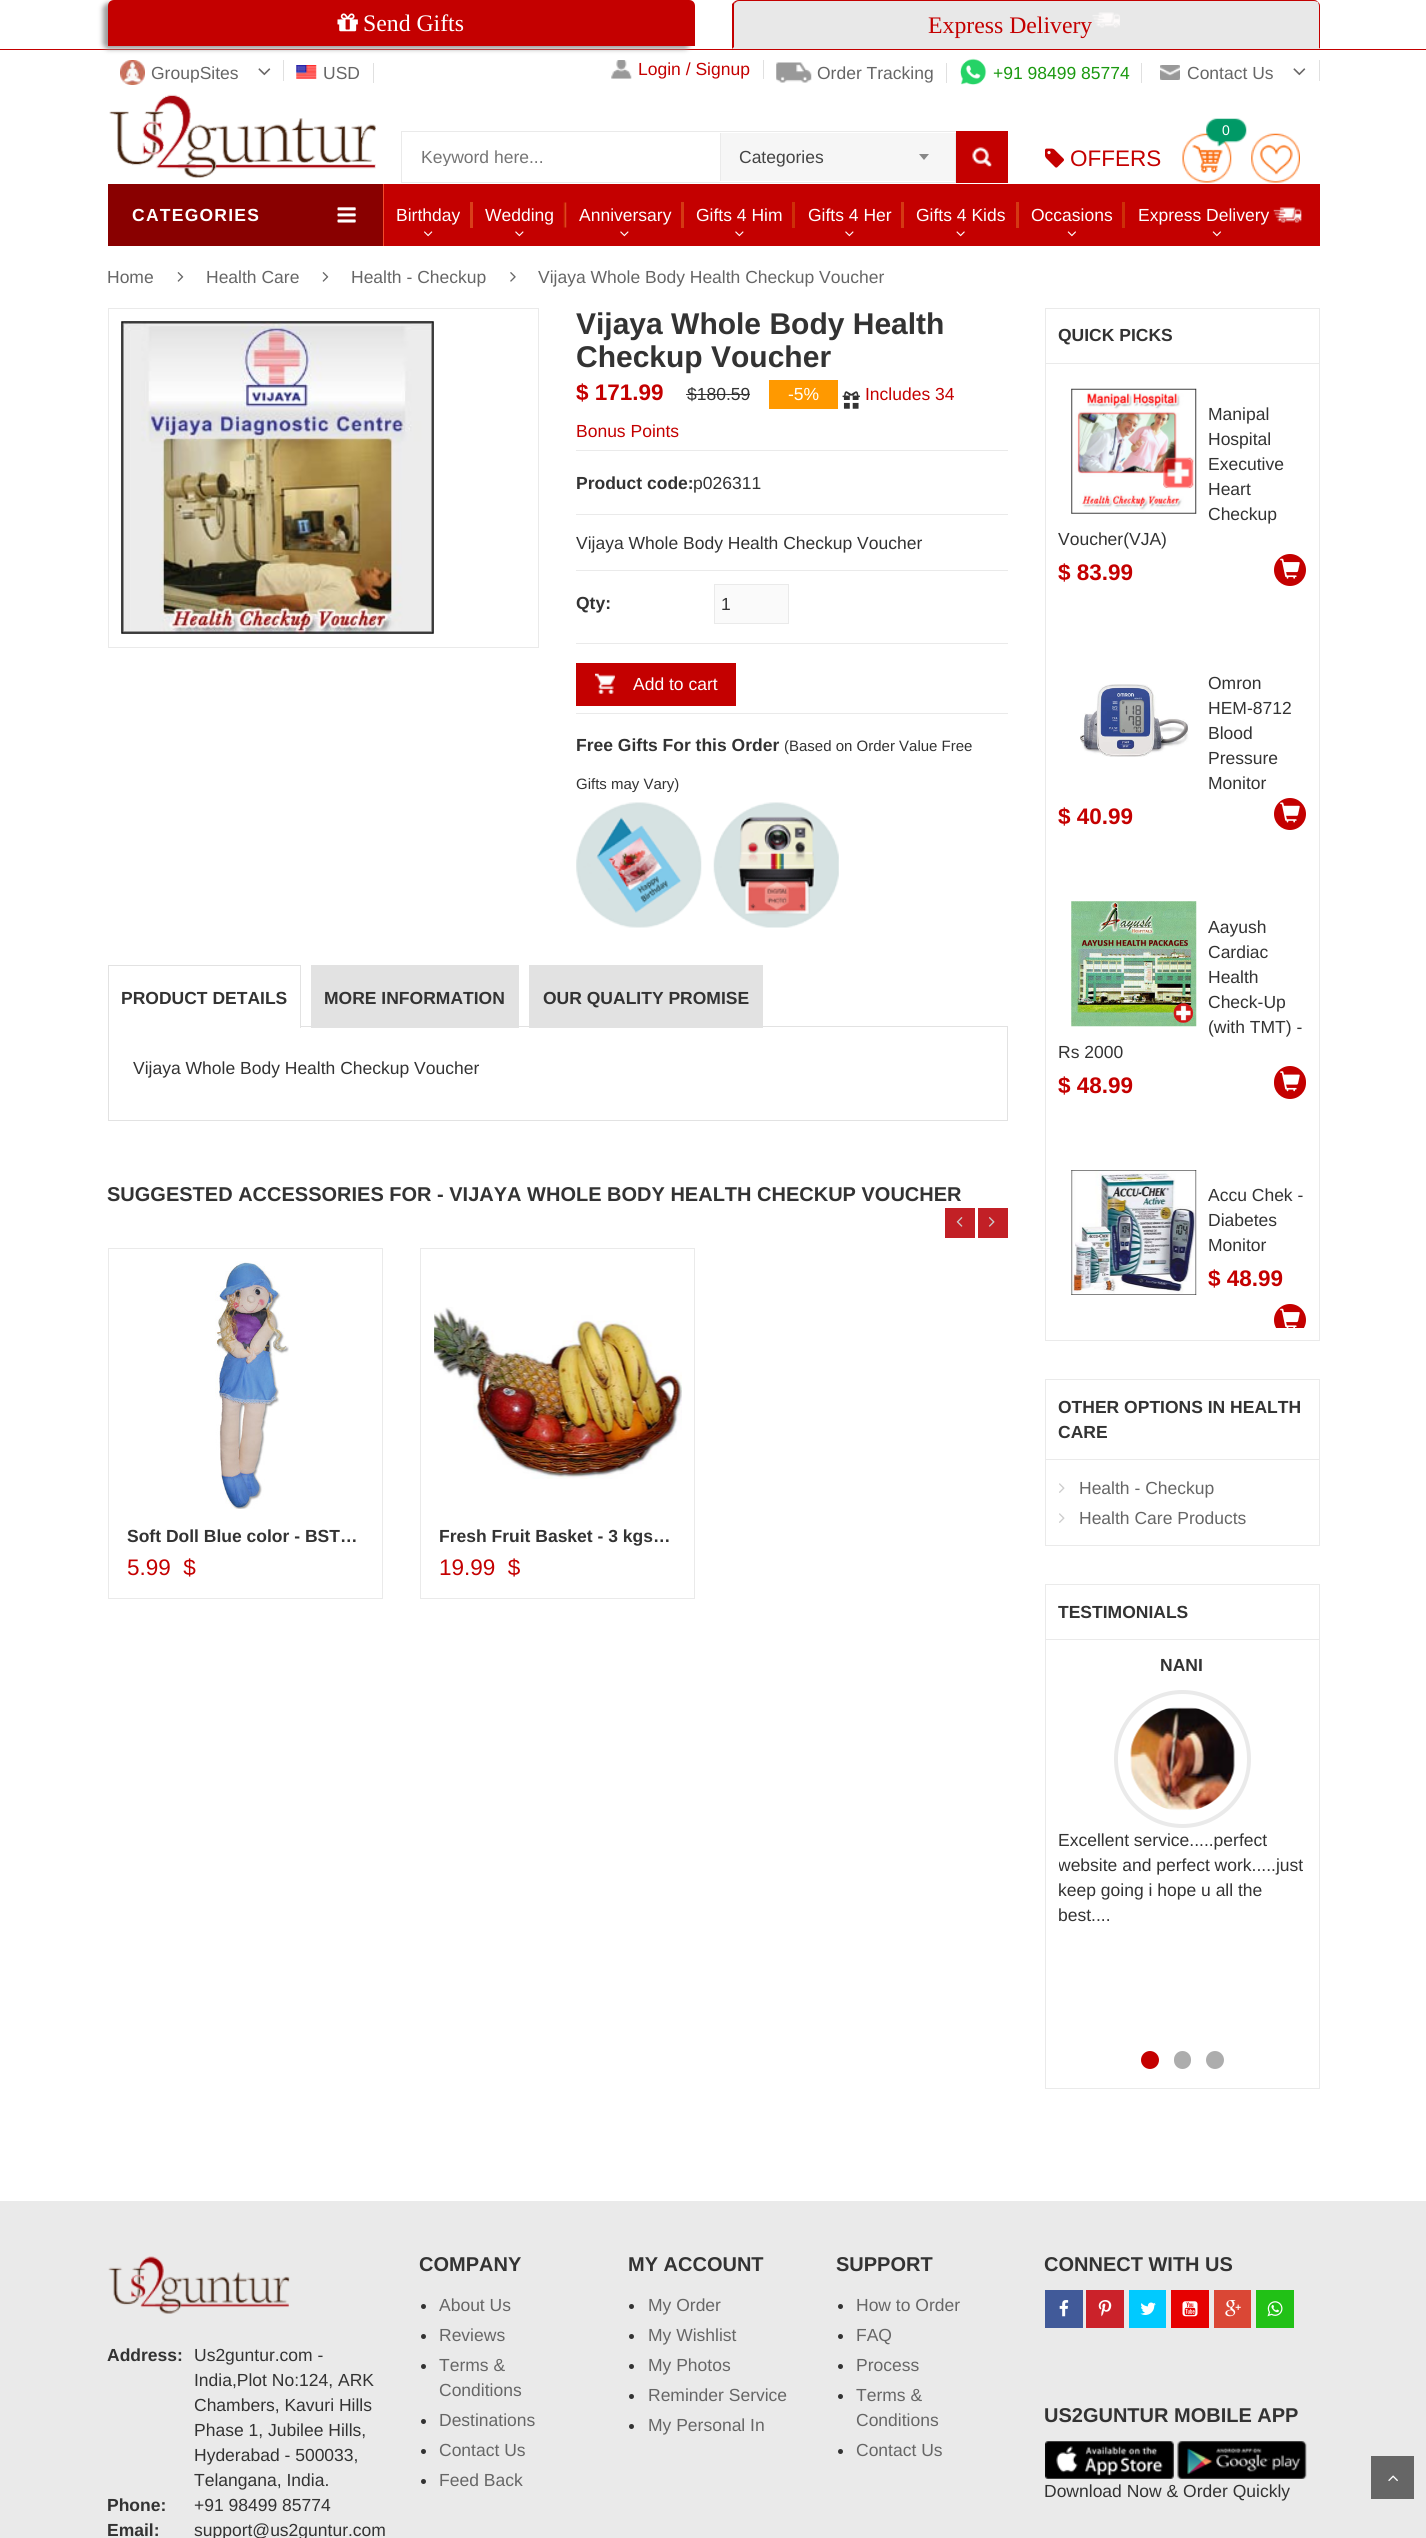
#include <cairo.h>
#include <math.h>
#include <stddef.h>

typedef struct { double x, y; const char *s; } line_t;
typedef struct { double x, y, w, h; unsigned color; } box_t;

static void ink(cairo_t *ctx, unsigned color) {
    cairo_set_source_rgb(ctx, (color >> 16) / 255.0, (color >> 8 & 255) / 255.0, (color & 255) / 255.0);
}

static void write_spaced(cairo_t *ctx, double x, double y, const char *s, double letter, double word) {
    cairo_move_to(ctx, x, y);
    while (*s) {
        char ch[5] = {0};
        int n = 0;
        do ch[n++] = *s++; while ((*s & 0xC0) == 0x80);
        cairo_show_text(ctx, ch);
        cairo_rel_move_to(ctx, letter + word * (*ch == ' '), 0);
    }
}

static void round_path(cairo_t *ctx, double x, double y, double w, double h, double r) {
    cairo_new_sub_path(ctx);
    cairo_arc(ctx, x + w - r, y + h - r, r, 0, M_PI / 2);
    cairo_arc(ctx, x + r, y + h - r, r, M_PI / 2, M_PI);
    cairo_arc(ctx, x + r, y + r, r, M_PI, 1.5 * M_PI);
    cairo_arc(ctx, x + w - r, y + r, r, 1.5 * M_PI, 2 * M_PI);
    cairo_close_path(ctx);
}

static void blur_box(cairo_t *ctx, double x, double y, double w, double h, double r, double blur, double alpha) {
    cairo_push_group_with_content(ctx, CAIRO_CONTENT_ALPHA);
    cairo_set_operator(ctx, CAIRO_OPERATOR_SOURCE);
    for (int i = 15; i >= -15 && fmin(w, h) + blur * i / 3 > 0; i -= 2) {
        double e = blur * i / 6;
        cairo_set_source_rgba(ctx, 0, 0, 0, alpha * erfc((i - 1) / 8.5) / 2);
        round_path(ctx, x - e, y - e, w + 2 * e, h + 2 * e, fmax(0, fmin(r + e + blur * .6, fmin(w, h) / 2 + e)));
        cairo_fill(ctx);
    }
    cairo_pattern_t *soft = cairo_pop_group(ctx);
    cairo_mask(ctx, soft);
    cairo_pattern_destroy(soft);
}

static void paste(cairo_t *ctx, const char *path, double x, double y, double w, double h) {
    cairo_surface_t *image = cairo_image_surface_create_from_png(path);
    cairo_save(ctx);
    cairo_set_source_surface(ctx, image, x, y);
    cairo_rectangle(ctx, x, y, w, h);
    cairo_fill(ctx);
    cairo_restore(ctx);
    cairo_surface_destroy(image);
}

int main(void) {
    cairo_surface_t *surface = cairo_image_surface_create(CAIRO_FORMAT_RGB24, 1426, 2538);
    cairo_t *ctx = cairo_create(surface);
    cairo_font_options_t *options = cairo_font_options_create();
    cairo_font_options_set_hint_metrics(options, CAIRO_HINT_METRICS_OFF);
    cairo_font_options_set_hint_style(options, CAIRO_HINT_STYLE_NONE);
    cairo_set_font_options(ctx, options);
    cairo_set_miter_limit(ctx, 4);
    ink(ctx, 0xFFFFFF);
    cairo_paint(ctx);
    ink(ctx, 0xC40000);
    cairo_rectangle(ctx, 0, 49, 1426, 1);
    cairo_fill(ctx);
    ink(ctx, 0x9C9C9C);
    blur_box(ctx, 103, 3, 587, 46, 6, 2.5, 1);
    ink(ctx, 0xC40000);
    cairo_new_path(ctx);
    cairo_move_to(ctx, 114, 0);
    cairo_line_to(ctx, 689, 0);
    cairo_curve_to(ctx, 692.5, 0, 695, 2.5, 695, 6);
    cairo_line_to(ctx, 695, 46);
    cairo_line_to(ctx, 108, 46);
    cairo_line_to(ctx, 108, 6);
    cairo_curve_to(ctx, 108, 2.5, 110.5, 0, 114, 0);
    cairo_close_path(ctx);
    cairo_fill(ctx);
    paste(ctx, "media/1.png", 337, 13, 21, 19);
    cairo_select_font_face(ctx, "Liberation Serif", CAIRO_FONT_SLANT_NORMAL, CAIRO_FONT_WEIGHT_NORMAL);
    cairo_set_font_size(ctx, 23.75);
    ink(ctx, 0xFFFFFF);
    cairo_move_to(ctx, 363, 31);
    cairo_show_text(ctx, "Send Gifts");
    ink(ctx, 0xE8E8E8);
    cairo_new_path(ctx);
    cairo_move_to(ctx, 739, 0);
    cairo_line_to(ctx, 1314, 0);
    cairo_curve_to(ctx, 1317.5, 0, 1320, 2.5, 1320, 6);
    cairo_line_to(ctx, 1320, 49);
    cairo_line_to(ctx, 733, 49);
    cairo_line_to(ctx, 733, 6);
    cairo_curve_to(ctx, 733, 2.5, 735.5, 0, 739, 0);
    cairo_close_path(ctx);
    cairo_fill(ctx);
    ink(ctx, 0xC40000);
    cairo_new_path(ctx);
    cairo_move_to(ctx, 739, 0);
    cairo_curve_to(ctx, 737, 0, 735, 1, 734, 2);
    cairo_line_to(ctx, 735, 3);
    cairo_curve_to(ctx, 736, 2, 737, 1, 739, 1);
    cairo_line_to(ctx, 1314, 1);
    cairo_curve_to(ctx, 1316, 1, 1317, 2, 1318, 2);
    cairo_curve_to(ctx, 1317, 1, 1316, 0, 1314, 0);
    cairo_close_path(ctx);
    cairo_fill(ctx);
    cairo_new_path(ctx);
    cairo_move_to(ctx, 1320, 49);
    cairo_line_to(ctx, 1320, 6);
    cairo_curve_to(ctx, 1320, 4, 1319, 3, 1318, 2);
    cairo_curve_to(ctx, 1318, 3, 1319, 4, 1319, 6);
    cairo_line_to(ctx, 1319, 48);
    cairo_close_path(ctx);
    cairo_fill(ctx);
    ink(ctx, 0xE8E8E8);
    cairo_new_path(ctx);
    cairo_move_to(ctx, 1320, 49);
    cairo_line_to(ctx, 1319, 48);
    cairo_line_to(ctx, 734, 48);
    cairo_line_to(ctx, 734, 47);
    cairo_line_to(ctx, 732, 49);
    cairo_close_path(ctx);
    cairo_fill(ctx);
    ink(ctx, 0xC40000);
    cairo_new_path(ctx);
    cairo_move_to(ctx, 732, 49);
    cairo_line_to(ctx, 732, 4);
    cairo_line_to(ctx, 734, 2);
    cairo_line_to(ctx, 735, 3);
    cairo_curve_to(ctx, 734, 3, 734, 5, 734, 6);
    cairo_line_to(ctx, 734, 47);
    cairo_close_path(ctx);
    cairo_fill(ctx);
    cairo_move_to(ctx, 928, 33);
    cairo_show_text(ctx, "Express Delivery");
    paste(ctx, "media/2.png", 1092, 12, 28, 16);
    ink(ctx, 0xE0E0E0);
    cairo_rectangle(ctx, 283, 60, 1, 21);
    cairo_fill(ctx);
    paste(ctx, "media/3.png", 120, 60, 25, 25);
    cairo_select_font_face(ctx, "Liberation Sans", CAIRO_FONT_SLANT_NORMAL, CAIRO_FONT_WEIGHT_NORMAL);
    cairo_set_font_size(ctx, 17.5);
    ink(ctx, 0x666666);
    cairo_move_to(ctx, 151, 79);
    cairo_show_text(ctx, "GroupSites");
    paste(ctx, "media/4.png", 258, 68, 13, 8);
    ink(ctx, 0xE0E0E0);
    cairo_rectangle(ctx, 373, 63, 1, 20);
    cairo_fill(ctx);
    paste(ctx, "media/5.png", 296, 65, 21, 14);
    ink(ctx, 0x666666);
    cairo_move_to(ctx, 323, 79);
    cairo_show_text(ctx, "USD");
    ink(ctx, 0xE0E0E0);
    cairo_rectangle(ctx, 763, 60, 1, 19);
    cairo_fill(ctx);
    paste(ctx, "media/6.png", 611, 60, 21, 19);
    ink(ctx, 0xC40000);
    cairo_move_to(ctx, 638, 75);
    cairo_show_text(ctx, "Login / Signup");
    ink(ctx, 0xE0E0E0);
    cairo_rectangle(ctx, 946, 63, 1, 20);
    cairo_fill(ctx);
    paste(ctx, "media/7.png", 776, 62, 36, 21);
    ink(ctx, 0x666666);
    cairo_move_to(ctx, 817, 79);
    cairo_show_text(ctx, "Order Tracking");
    ink(ctx, 0xE0E0E0);
    cairo_rectangle(ctx, 1141, 63, 1, 20);
    cairo_fill(ctx);
    paste(ctx, "media/8.png", 960, 58, 27, 27);
    ink(ctx, 0x1A990F);
    cairo_move_to(ctx, 993, 79);
    cairo_show_text(ctx, "+91 98499 85774");
    ink(ctx, 0xE0E0E0);
    cairo_rectangle(ctx, 1319, 60, 1, 21);
    cairo_fill(ctx);
    paste(ctx, "media/9.png", 1160, 65, 20, 15);
    ink(ctx, 0x666666);
    cairo_move_to(ctx, 1187, 79);
    cairo_show_text(ctx, "Contact Us");
    paste(ctx, "media/4.png", 1293, 68, 13, 8);
    paste(ctx, "media/10.png", 109, 94, 267, 84);
    cairo_rectangle(ctx, 401.5, 131.5, 606, 51);
    ink(ctx, 0xEAEAEA);
    cairo_set_line_width(ctx, 1);
    cairo_stroke(ctx);
    cairo_save(ctx);
    cairo_rectangle(ctx, 421, 146, 210, 20);
    cairo_clip(ctx);
    ink(ctx, 0x757575);
    cairo_move_to(ctx, 421, 163);
    cairo_show_text(ctx, "Keyword here...");
    cairo_restore(ctx);
    {
        static const box_t items[] = {
            {721, 133, 234, 48, 0xF6F6F6},
            {720, 133, 1, 48, 0xEAEAEA},
            {955, 133, 1, 50, 0xEAEAEA},
        };
        for (size_t i = 0; i < sizeof items / sizeof *items; i++) {
            ink(ctx, items[i].color);
            cairo_rectangle(ctx, items[i].x, items[i].y, items[i].w, items[i].h);
            cairo_fill(ctx);
        }
    }
    ink(ctx, 0x444444);
    cairo_move_to(ctx, 739, 163);
    cairo_show_text(ctx, "Categories");
    ink(ctx, 0x888888);
    cairo_new_path(ctx);
    cairo_move_to(ctx, 919, 154);
    cairo_line_to(ctx, 929, 154);
    cairo_line_to(ctx, 924, 160);
    cairo_close_path(ctx);
    cairo_fill(ctx);
    ink(ctx, 0xC40000);
    cairo_rectangle(ctx, 956, 131, 52, 52);
    cairo_fill(ctx);
    paste(ctx, "media/11.png", 972, 147, 20, 20);
    paste(ctx, "media/12.png", 1182, 133, 50, 50);
    paste(ctx, "media/13.png", 1206, 118, 41, 29);
    cairo_set_font_size(ctx, 14);
    ink(ctx, 0xFFFFFF);
    cairo_move_to(ctx, 1222, 135);
    cairo_show_text(ctx, "0");
    paste(ctx, "media/14.png", 1045, 148, 19, 20);
    cairo_set_font_size(ctx, 22.5);
    ink(ctx, 0xC40000);
    cairo_move_to(ctx, 1070, 166);
    cairo_show_text(ctx, "OFFERS");
    paste(ctx, "media/15.png", 1251, 133, 49, 50);
    ink(ctx, 0x890000);
    cairo_rectangle(ctx, 108, 184, 275, 62);
    cairo_fill(ctx);
    cairo_select_font_face(ctx, "Liberation Sans", CAIRO_FONT_SLANT_NORMAL, CAIRO_FONT_WEIGHT_BOLD);
    cairo_set_font_size(ctx, 17.5);
    ink(ctx, 0xFFFFFF);
    write_spaced(ctx, 132, 221, "CATEGORIES", 1.25, 0);
    paste(ctx, "media/16.png", 337, 207, 19, 16);
    {
        static const box_t items[] = {
            {384, 184, 936, 62, 0xC40000},
            {383, 184, 1, 62, 0xF44A2A},
            {470, 202, 3, 26, 0xD93F1A},
        };
        for (size_t i = 0; i < sizeof items / sizeof *items; i++) {
            ink(ctx, items[i].color);
            cairo_rectangle(ctx, items[i].x, items[i].y, items[i].w, items[i].h);
            cairo_fill(ctx);
        }
    }
    cairo_select_font_face(ctx, "Liberation Sans", CAIRO_FONT_SLANT_NORMAL, CAIRO_FONT_WEIGHT_NORMAL);
    ink(ctx, 0xFFFFFF);
    cairo_move_to(ctx, 396, 221);
    cairo_show_text(ctx, "Birthday");
    paste(ctx, "media/17.png", 424, 231, 9, 6);
    paste(ctx, "media/18.png", 563, 202, 4, 26);
    cairo_move_to(ctx, 485, 221);
    cairo_show_text(ctx, "Wedding");
    paste(ctx, "media/19.png", 515, 231, 9, 6);
    ink(ctx, 0xD43913);
    cairo_rectangle(ctx, 681, 202, 3, 26);
    cairo_fill(ctx);
    ink(ctx, 0xFFFFFF);
    cairo_move_to(ctx, 579, 221);
    cairo_show_text(ctx, "Anniversary");
    paste(ctx, "media/19.png", 620, 231, 9, 6);
    ink(ctx, 0xCD3009);
    cairo_rectangle(ctx, 792, 202, 3, 26);
    cairo_fill(ctx);
    ink(ctx, 0xFFFFFF);
    cairo_move_to(ctx, 696, 221);
    cairo_show_text(ctx, "Gifts 4 Him");
    paste(ctx, "media/19.png", 735, 231, 9, 6);
    ink(ctx, 0xD43913);
    cairo_rectangle(ctx, 901, 202, 3, 26);
    cairo_fill(ctx);
    ink(ctx, 0xFFFFFF);
    cairo_move_to(ctx, 808, 221);
    cairo_show_text(ctx, "Gifts 4 Her");
    paste(ctx, "media/19.png", 845, 231, 9, 6);
    ink(ctx, 0xD43913);
    cairo_rectangle(ctx, 1016, 202, 3, 26);
    cairo_fill(ctx);
    ink(ctx, 0xFFFFFF);
    cairo_move_to(ctx, 916, 221);
    cairo_show_text(ctx, "Gifts 4 Kids");
    paste(ctx, "media/20.png", 956, 231, 9, 6);
    ink(ctx, 0xCD3009);
    cairo_rectangle(ctx, 1122, 202, 3, 26);
    cairo_fill(ctx);
    ink(ctx, 0xFFFFFF);
    cairo_move_to(ctx, 1031, 221);
    cairo_show_text(ctx, "Occasions");
    paste(ctx, "media/21.png", 1067, 231, 9, 6);
    cairo_move_to(ctx, 1138, 221);
    cairo_show_text(ctx, "Express Delivery");
    paste(ctx, "media/22.png", 1273, 207, 29, 16);
    paste(ctx, "media/21.png", 1212, 231, 9, 6);
    ink(ctx, 0x666666);
    cairo_move_to(ctx, 107, 283);
    cairo_show_text(ctx, "Home");
    paste(ctx, "media/23.png", 177, 272, 7, 10);
    cairo_move_to(ctx, 206, 283);
    cairo_show_text(ctx, "Health Care");
    paste(ctx, "media/23.png", 322, 272, 7, 10);
    cairo_move_to(ctx, 351, 283);
    cairo_show_text(ctx, "Health - Checkup");
    paste(ctx, "media/24.png", 510, 272, 6, 10);
    cairo_move_to(ctx, 538, 283);
    cairo_show_text(ctx, "Vijaya Whole Body Health Checkup Voucher");
    cairo_rectangle(ctx, 108.5, 308.5, 430, 339);
    ink(ctx, 0xEAEAEA);
    cairo_stroke(ctx);
    paste(ctx, "media/25.png", 121, 321, 313, 313);
    cairo_select_font_face(ctx, "Liberation Sans", CAIRO_FONT_SLANT_NORMAL, CAIRO_FONT_WEIGHT_BOLD);
    cairo_set_font_size(ctx, 30);
    ink(ctx, 0x333333);
    cairo_move_to(ctx, 576, 334);
    cairo_show_text(ctx, "Vijaya Whole Body Health");
    cairo_move_to(ctx, 576, 367);
    cairo_show_text(ctx, "Checkup Voucher");
    cairo_set_font_size(ctx, 22.5);
    ink(ctx, 0xC40000);
    cairo_move_to(ctx, 576, 400);
    cairo_show_text(ctx, "$ 171.99");
    paste(ctx, "media/26.png", 842, 391, 18, 18);
    cairo_select_font_face(ctx, "Liberation Sans", CAIRO_FONT_SLANT_NORMAL, CAIRO_FONT_WEIGHT_NORMAL);
    cairo_set_font_size(ctx, 17.5);
    cairo_move_to(ctx, 865, 400);
    cairo_show_text(ctx, "Includes 34");
    cairo_move_to(ctx, 576, 437);
    cairo_show_text(ctx, "Bonus Points");
    ink(ctx, 0x333333);
    cairo_move_to(ctx, 687, 400);
    cairo_show_text(ctx, "$180.59");
    cairo_rectangle(ctx, 686, 394, 64, 1);
    cairo_fill(ctx);
    ink(ctx, 0xFF9900);
    cairo_rectangle(ctx, 769, 380, 69, 29);
    cairo_fill(ctx);
    ink(ctx, 0xFFFFFF);
    cairo_move_to(ctx, 788, 400);
    cairo_show_text(ctx, "-5%");
    ink(ctx, 0xEAEAEA);
    cairo_rectangle(ctx, 576, 450, 432, 1);
    cairo_fill(ctx);
    cairo_select_font_face(ctx, "Liberation Sans", CAIRO_FONT_SLANT_NORMAL, CAIRO_FONT_WEIGHT_BOLD);
    ink(ctx, 0x333333);
    cairo_move_to(ctx, 576, 489);
    cairo_show_text(ctx, "Product code:");
    cairo_select_font_face(ctx, "Liberation Sans", CAIRO_FONT_SLANT_NORMAL, CAIRO_FONT_WEIGHT_NORMAL);
    cairo_move_to(ctx, 693, 489);
    cairo_show_text(ctx, "p026311");
    ink(ctx, 0xEAEAEA);
    cairo_rectangle(ctx, 576, 514, 432, 1);
    cairo_fill(ctx);
    ink(ctx, 0x333333);
    cairo_move_to(ctx, 576, 549);
    cairo_show_text(ctx, "Vijaya Whole Body Health Checkup Voucher");
    ink(ctx, 0xEAEAEA);
    cairo_rectangle(ctx, 576, 570, 432, 1);
    cairo_fill(ctx);
    cairo_select_font_face(ctx, "Liberation Sans", CAIRO_FONT_SLANT_NORMAL, CAIRO_FONT_WEIGHT_BOLD);
    ink(ctx, 0x333333);
    cairo_move_to(ctx, 576, 609);
    cairo_show_text(ctx, "Qty:");
    ink(ctx, 0xFAFAFA);
    cairo_rectangle(ctx, 714.5, 584.5, 74, 39);
    cairo_fill_preserve(ctx);
    ink(ctx, 0xEAEAEA);
    cairo_stroke(ctx);
    cairo_select_font_face(ctx, "Liberation Sans", CAIRO_FONT_SLANT_NORMAL, CAIRO_FONT_WEIGHT_NORMAL);
    ink(ctx, 0x333333);
    cairo_move_to(ctx, 721, 610);
    cairo_show_text(ctx, "1");
    ink(ctx, 0xEAEAEA);
    cairo_rectangle(ctx, 576, 643, 432, 1);
    cairo_fill(ctx);
    ink(ctx, 0xC40000);
    cairo_rectangle(ctx, 576, 663, 160, 43);
    cairo_fill(ctx);
    paste(ctx, "media/27.png", 595, 673, 20, 21);
    ink(ctx, 0xFFFFFF);
    cairo_move_to(ctx, 633, 690);
    cairo_show_text(ctx, "Add to cart");
    ink(ctx, 0xEAEAEA);
    cairo_rectangle(ctx, 576, 713, 432, 1);
    cairo_fill(ctx);
    cairo_select_font_face(ctx, "Liberation Sans", CAIRO_FONT_SLANT_NORMAL, CAIRO_FONT_WEIGHT_BOLD);
    ink(ctx, 0x333333);
    cairo_move_to(ctx, 576, 751);
    cairo_show_text(ctx, "Free Gifts For this Order");
    cairo_select_font_face(ctx, "Liberation Sans", CAIRO_FONT_SLANT_NORMAL, CAIRO_FONT_WEIGHT_NORMAL);
    cairo_set_font_size(ctx, 15);
    cairo_move_to(ctx, 784, 751);
    cairo_show_text(ctx, "(Based on Order Value Free");
    cairo_move_to(ctx, 576, 789);
    cairo_show_text(ctx, "Gifts may Vary)");
    paste(ctx, "media/28.png", 576, 802, 126, 126);
    paste(ctx, "media/29.png", 713, 802, 126, 126);
    cairo_rectangle(ctx, 108.5, 1026.5, 899, 94);
    ink(ctx, 0xE2E2E2);
    cairo_stroke(ctx);
    cairo_rectangle(ctx, 108, 965, 193, 63);
    cairo_fill(ctx);
    ink(ctx, 0xFFFFFF);
    cairo_rectangle(ctx, 109, 966, 191, 62);
    cairo_fill(ctx);
    cairo_select_font_face(ctx, "Liberation Sans", CAIRO_FONT_SLANT_NORMAL, CAIRO_FONT_WEIGHT_BOLD);
    cairo_set_font_size(ctx, 17.5);
    ink(ctx, 0x333333);
    cairo_move_to(ctx, 121, 1004);
    cairo_show_text(ctx, "PRODUCT DETAILS");
    ink(ctx, 0xE2E2E2);
    cairo_rectangle(ctx, 311, 965, 208, 63);
    cairo_fill(ctx);
    ink(ctx, 0x333333);
    cairo_move_to(ctx, 324, 1004);
    cairo_show_text(ctx, "MORE INFORMATION");
    ink(ctx, 0xE2E2E2);
    cairo_rectangle(ctx, 529, 965, 234, 63);
    cairo_fill(ctx);
    ink(ctx, 0x333333);
    cairo_move_to(ctx, 543, 1004);
    cairo_show_text(ctx, "OUR QUALITY PROMISE");
    cairo_select_font_face(ctx, "Liberation Sans", CAIRO_FONT_SLANT_NORMAL, CAIRO_FONT_WEIGHT_NORMAL);
    cairo_move_to(ctx, 133, 1074);
    cairo_show_text(ctx, "Vijaya Whole Body Health Checkup Voucher");
    cairo_select_font_face(ctx, "Liberation Sans", CAIRO_FONT_SLANT_NORMAL, CAIRO_FONT_WEIGHT_BOLD);
    cairo_set_font_size(ctx, 20);
    cairo_move_to(ctx, 107, 1201);
    cairo_show_text(ctx, "SUGGESTED ACCESSORIES FOR - VIJAYA WHOLE BODY HEALTH CHECKUP VOUCHER");
    ink(ctx, 0xC22026);
    cairo_rectangle(ctx, 945, 1208, 30, 30);
    cairo_fill(ctx);
    paste(ctx, "media/30.png", 956, 1217, 7, 10);
    cairo_rectangle(ctx, 978, 1208, 30, 30);
    cairo_fill(ctx);
    paste(ctx, "media/31.png", 988, 1217, 7, 10);
    cairo_rectangle(ctx, 108.5, 1248.5, 274, 350);
    ink(ctx, 0xEAEAEA);
    cairo_stroke(ctx);
    paste(ctx, "media/32.png", 215, 1261, 74, 248);
    cairo_set_font_size(ctx, 17.5);
    ink(ctx, 0x333333);
    cairo_move_to(ctx, 127, 1542);
    cairo_show_text(ctx, "Soft Doll Blue color - BST…");
    cairo_select_font_face(ctx, "Liberation Sans", CAIRO_FONT_SLANT_NORMAL, CAIRO_FONT_WEIGHT_NORMAL);
    cairo_set_font_size(ctx, 22.5);
    ink(ctx, 0xC40000);
    cairo_move_to(ctx, 127, 1575);
    cairo_show_text(ctx, "5.99  $");
    cairo_rectangle(ctx, 420.5, 1248.5, 274, 350);
    ink(ctx, 0xEAEAEA);
    cairo_stroke(ctx);
    paste(ctx, "media/33.png", 434, 1307, 248, 172);
    cairo_select_font_face(ctx, "Liberation Sans", CAIRO_FONT_SLANT_NORMAL, CAIRO_FONT_WEIGHT_BOLD);
    cairo_set_font_size(ctx, 17.5);
    ink(ctx, 0x333333);
    cairo_move_to(ctx, 439, 1542);
    cairo_show_text(ctx, "Fresh Fruit Basket - 3 kgs…");
    cairo_select_font_face(ctx, "Liberation Sans", CAIRO_FONT_SLANT_NORMAL, CAIRO_FONT_WEIGHT_NORMAL);
    cairo_set_font_size(ctx, 22.5);
    ink(ctx, 0xC40000);
    cairo_move_to(ctx, 439, 1575);
    cairo_show_text(ctx, "19.99  $");
    cairo_rectangle(ctx, 1045.5, 308.5, 274, 1032);
    ink(ctx, 0xEAEAEA);
    cairo_stroke(ctx);
    cairo_rectangle(ctx, 1046, 363, 273, 1);
    cairo_fill(ctx);
    cairo_select_font_face(ctx, "Liberation Sans", CAIRO_FONT_SLANT_NORMAL, CAIRO_FONT_WEIGHT_BOLD);
    cairo_set_font_size(ctx, 17.5);
    ink(ctx, 0x333333);
    cairo_move_to(ctx, 1058, 341);
    cairo_show_text(ctx, "QUICK PICKS");
    paste(ctx, "media/34.png", 1071, 388, 126, 126);
    cairo_select_font_face(ctx, "Liberation Sans", CAIRO_FONT_SLANT_NORMAL, CAIRO_FONT_WEIGHT_NORMAL);
    {
        static const line_t items[] = {
            {1208, 420, "Manipal"},
            {1208, 445, "Hospital"},
            {1208, 470, "Executive"},
            {1208, 495, "Heart"},
            {1208, 520, "Checkup"},
            {1058, 545, "Voucher(VJA)"},
        };
        for (size_t i = 0; i < sizeof items / sizeof *items; i++) {
            cairo_move_to(ctx, items[i].x, items[i].y);
            cairo_show_text(ctx, items[i].s);
        }
    }
    cairo_select_font_face(ctx, "Liberation Sans", CAIRO_FONT_SLANT_NORMAL, CAIRO_FONT_WEIGHT_BOLD);
    cairo_set_font_size(ctx, 22.5);
    ink(ctx, 0xC40000);
    cairo_move_to(ctx, 1058, 580);
    cairo_show_text(ctx, "$ 83.99");
    cairo_new_path(ctx);
    cairo_arc(ctx, 1290, 570, 16, 0, 2 * M_PI);
    cairo_fill(ctx);
    paste(ctx, "media/35.png", 1280, 558, 20, 21);
    cairo_select_font_face(ctx, "Liberation Sans", CAIRO_FONT_SLANT_NORMAL, CAIRO_FONT_WEIGHT_NORMAL);
    cairo_set_font_size(ctx, 17.5);
    ink(ctx, 0x333333);
    {
        static const line_t items[] = {
            {1208, 689, "Omron"},
            {1208, 714, "HEM-8712"},
            {1208, 739, "Blood"},
            {1208, 764, "Pressure"},
            {1208, 789, "Monitor"},
        };
        for (size_t i = 0; i < sizeof items / sizeof *items; i++) {
            cairo_move_to(ctx, items[i].x, items[i].y);
            cairo_show_text(ctx, items[i].s);
        }
    }
    cairo_select_font_face(ctx, "Liberation Sans", CAIRO_FONT_SLANT_NORMAL, CAIRO_FONT_WEIGHT_BOLD);
    cairo_set_font_size(ctx, 22.5);
    ink(ctx, 0xC40000);
    cairo_move_to(ctx, 1058, 824);
    cairo_show_text(ctx, "$ 40.99");
    cairo_new_path(ctx);
    cairo_arc(ctx, 1290, 814, 16, 0, 2 * M_PI);
    cairo_fill(ctx);
    paste(ctx, "media/36.png", 1280, 802, 20, 21);
    paste(ctx, "media/37.png", 1080, 684, 109, 73);
    paste(ctx, "media/38.png", 1071, 901, 126, 126);
    cairo_select_font_face(ctx, "Liberation Sans", CAIRO_FONT_SLANT_NORMAL, CAIRO_FONT_WEIGHT_NORMAL);
    cairo_set_font_size(ctx, 17.5);
    ink(ctx, 0x333333);
    {
        static const line_t items[] = {
            {1208, 933, "Aayush"},
            {1208, 958, "Cardiac"},
            {1208, 983, "Health"},
            {1208, 1008, "Check-Up"},
            {1208, 1033, "(with TMT) -"},
            {1058, 1058, "Rs 2000"},
        };
        for (size_t i = 0; i < sizeof items / sizeof *items; i++) {
            cairo_move_to(ctx, items[i].x, items[i].y);
            cairo_show_text(ctx, items[i].s);
        }
    }
    cairo_select_font_face(ctx, "Liberation Sans", CAIRO_FONT_SLANT_NORMAL, CAIRO_FONT_WEIGHT_BOLD);
    cairo_set_font_size(ctx, 22.5);
    ink(ctx, 0xC40000);
    cairo_move_to(ctx, 1058, 1093);
    cairo_show_text(ctx, "$ 48.99");
    round_path(ctx, 1274, 1066, 32, 33, 16);
    cairo_fill(ctx);
    paste(ctx, "media/39.png", 1280, 1071, 20, 21);
    paste(ctx, "media/40.png", 1071, 1170, 126, 125);
    cairo_select_font_face(ctx, "Liberation Sans", CAIRO_FONT_SLANT_NORMAL, CAIRO_FONT_WEIGHT_NORMAL);
    cairo_set_font_size(ctx, 17.5);
    ink(ctx, 0x333333);
    {
        static const line_t items[] = {
            {1208, 1201, "Accu Chek -"},
            {1208, 1226, "Diabetes"},
            {1208, 1251, "Monitor"},
        };
        for (size_t i = 0; i < sizeof items / sizeof *items; i++) {
            cairo_move_to(ctx, items[i].x, items[i].y);
            cairo_show_text(ctx, items[i].s);
        }
    }
    cairo_select_font_face(ctx, "Liberation Sans", CAIRO_FONT_SLANT_NORMAL, CAIRO_FONT_WEIGHT_BOLD);
    cairo_set_font_size(ctx, 22.5);
    ink(ctx, 0xC40000);
    cairo_move_to(ctx, 1208, 1286);
    cairo_show_text(ctx, "$ 48.99");
    cairo_save(ctx);
    cairo_rectangle(ctx, 1059, 376, 247, 952);
    cairo_clip(ctx);
    cairo_arc(ctx, 1290, 1320, 16, 0, 2 * M_PI);
    cairo_fill(ctx);
    cairo_restore(ctx);
    paste(ctx, "media/41.png", 1280, 1308, 20, 20);
    cairo_rectangle(ctx, 1045.5, 1379.5, 274, 166);
    ink(ctx, 0xEAEAEA);
    cairo_stroke(ctx);
    cairo_rectangle(ctx, 1046, 1459, 273, 1);
    cairo_fill(ctx);
    cairo_set_font_size(ctx, 17.5);
    ink(ctx, 0x333333);
    cairo_move_to(ctx, 1058, 1413);
    cairo_show_text(ctx, "OTHER OPTIONS IN HEALTH");
    cairo_move_to(ctx, 1058, 1438);
    cairo_show_text(ctx, "CARE");
    paste(ctx, "media/42.png", 1059, 1483, 6, 10);
    cairo_select_font_face(ctx, "Liberation Sans", CAIRO_FONT_SLANT_NORMAL, CAIRO_FONT_WEIGHT_NORMAL);
    ink(ctx, 0x666666);
    cairo_move_to(ctx, 1079, 1494);
    cairo_show_text(ctx, "Health - Checkup");
    paste(ctx, "media/42.png", 1059, 1513, 6, 10);
    cairo_move_to(ctx, 1079, 1524);
    cairo_show_text(ctx, "Health Care Products");
    cairo_rectangle(ctx, 1045.5, 1584.5, 274, 504);
    ink(ctx, 0xEAEAEA);
    cairo_stroke(ctx);
    cairo_rectangle(ctx, 1046, 1639, 273, 1);
    cairo_fill(ctx);
    cairo_select_font_face(ctx, "Liberation Sans", CAIRO_FONT_SLANT_NORMAL, CAIRO_FONT_WEIGHT_BOLD);
    ink(ctx, 0x333333);
    cairo_move_to(ctx, 1058, 1618);
    cairo_show_text(ctx, "TESTIMONIALS");
    cairo_move_to(ctx, 1160, 1671);
    cairo_show_text(ctx, "NANI");
    round_path(ctx, 1116, 1692, 133, 134, 66.5);
    ink(ctx, 0xEAEAEA);
    cairo_set_line_width(ctx, 4);
    cairo_stroke(ctx);
    paste(ctx, "media/43.png", 1130, 1707, 105, 104);
    cairo_select_font_face(ctx, "Liberation Sans", CAIRO_FONT_SLANT_NORMAL, CAIRO_FONT_WEIGHT_NORMAL);
    ink(ctx, 0x333333);
    cairo_move_to(ctx, 1058, 1846);
    cairo_show_text(ctx, "Excellent service.....perfect");
    cairo_save(ctx);
    cairo_rectangle(ctx, 1059, 1653, 247, 375);
    cairo_clip(ctx);
    cairo_move_to(ctx, 1058, 1871);
    cairo_show_text(ctx, "website and perfect work.....just");
    cairo_restore(ctx);
    cairo_move_to(ctx, 1058, 1896);
    cairo_show_text(ctx, "keep going i hope u all the");
    cairo_move_to(ctx, 1058, 1921);
    cairo_show_text(ctx, "best....");
    ink(ctx, 0xC40000);
    cairo_new_path(ctx);
    cairo_arc(ctx, 1150, 2060, 9, 0, 2 * M_PI);
    cairo_fill(ctx);
    ink(ctx, 0xADADAD);
    round_path(ctx, 1174, 2051, 17, 18, 8.5);
    cairo_fill(ctx);
    cairo_arc(ctx, 1215, 2060, 9, 0, 2 * M_PI);
    cairo_fill(ctx);
    ink(ctx, 0xEAEAEA);
    cairo_rectangle(ctx, 0, 2201, 1426, 337);
    cairo_fill(ctx);
    paste(ctx, "media/44.png", 108, 2256, 182, 58);
    cairo_select_font_face(ctx, "Liberation Sans", CAIRO_FONT_SLANT_NORMAL, CAIRO_FONT_WEIGHT_BOLD);
    ink(ctx, 0x333333);
    cairo_move_to(ctx, 107, 2361);
    cairo_show_text(ctx, "Address:");
    cairo_select_font_face(ctx, "Liberation Sans", CAIRO_FONT_SLANT_NORMAL, CAIRO_FONT_WEIGHT_NORMAL);
    {
        static const line_t items[] = {
            {194, 2361, "Us2guntur.com -"},
            {194, 2386, "India,Plot No:124, ARK"},
            {194, 2411, "Chambers, Kavuri Hills"},
            {194, 2436, "Phase 1, Jubilee Hills,"},
            {194, 2461, "Hyderabad - 500033,"},
            {194, 2486, "Telangana, India."},
        };
        for (size_t i = 0; i < sizeof items / sizeof *items; i++) {
            cairo_move_to(ctx, items[i].x, items[i].y);
            cairo_show_text(ctx, items[i].s);
        }
    }
    cairo_select_font_face(ctx, "Liberation Sans", CAIRO_FONT_SLANT_NORMAL, CAIRO_FONT_WEIGHT_BOLD);
    cairo_move_to(ctx, 107, 2511);
    cairo_show_text(ctx, "Phone:");
    cairo_select_font_face(ctx, "Liberation Sans", CAIRO_FONT_SLANT_NORMAL, CAIRO_FONT_WEIGHT_NORMAL);
    cairo_move_to(ctx, 194, 2511);
    cairo_show_text(ctx, "+91 98499 85774");
    cairo_select_font_face(ctx, "Liberation Sans", CAIRO_FONT_SLANT_NORMAL, CAIRO_FONT_WEIGHT_BOLD);
    cairo_move_to(ctx, 107, 2536);
    cairo_show_text(ctx, "Email:");
    cairo_select_font_face(ctx, "Liberation Sans", CAIRO_FONT_SLANT_NORMAL, CAIRO_FONT_WEIGHT_NORMAL);
    cairo_move_to(ctx, 194, 2536);
    cairo_show_text(ctx, "support@us2guntur.com");
    cairo_select_font_face(ctx, "Liberation Sans", CAIRO_FONT_SLANT_NORMAL, CAIRO_FONT_WEIGHT_BOLD);
    cairo_set_font_size(ctx, 20);
    cairo_move_to(ctx, 419, 2271);
    cairo_show_text(ctx, "COMPANY");
    cairo_new_path(ctx);
    cairo_arc(ctx, 423.5, 2306.5, 2.5, 0, 2 * M_PI);
    cairo_fill(ctx);
    cairo_select_font_face(ctx, "Liberation Sans", CAIRO_FONT_SLANT_NORMAL, CAIRO_FONT_WEIGHT_NORMAL);
    cairo_set_font_size(ctx, 17.5);
    ink(ctx, 0x666666);
    cairo_move_to(ctx, 439, 2311);
    cairo_show_text(ctx, "About Us");
    ink(ctx, 0x333333);
    cairo_new_path(ctx);
    cairo_arc(ctx, 423.5, 2336.5, 2.5, 0, 2 * M_PI);
    cairo_fill(ctx);
    ink(ctx, 0x666666);
    cairo_move_to(ctx, 439, 2341);
    cairo_show_text(ctx, "Reviews");
    ink(ctx, 0x333333);
    cairo_new_path(ctx);
    cairo_arc(ctx, 423.5, 2366.5, 2.5, 0, 2 * M_PI);
    cairo_fill(ctx);
    ink(ctx, 0x666666);
    cairo_move_to(ctx, 439, 2371);
    cairo_show_text(ctx, "Terms &");
    cairo_move_to(ctx, 439, 2396);
    cairo_show_text(ctx, "Conditions");
    ink(ctx, 0x333333);
    cairo_new_path(ctx);
    cairo_arc(ctx, 423.5, 2421.5, 2.5, 0, 2 * M_PI);
    cairo_fill(ctx);
    ink(ctx, 0x666666);
    cairo_move_to(ctx, 439, 2426);
    cairo_show_text(ctx, "Destinations");
    ink(ctx, 0x333333);
    cairo_new_path(ctx);
    cairo_arc(ctx, 423.5, 2451.5, 2.5, 0, 2 * M_PI);
    cairo_fill(ctx);
    ink(ctx, 0x666666);
    cairo_move_to(ctx, 439, 2456);
    cairo_show_text(ctx, "Contact Us");
    ink(ctx, 0x333333);
    cairo_new_path(ctx);
    cairo_arc(ctx, 423.5, 2481.5, 2.5, 0, 2 * M_PI);
    cairo_fill(ctx);
    ink(ctx, 0x666666);
    cairo_move_to(ctx, 439, 2486);
    cairo_show_text(ctx, "Feed Back");
    cairo_select_font_face(ctx, "Liberation Sans", CAIRO_FONT_SLANT_NORMAL, CAIRO_FONT_WEIGHT_BOLD);
    cairo_set_font_size(ctx, 20);
    ink(ctx, 0x333333);
    cairo_move_to(ctx, 628, 2271);
    cairo_show_text(ctx, "MY ACCOUNT");
    cairo_new_path(ctx);
    cairo_arc(ctx, 631.5, 2306.5, 2.5, 0, 2 * M_PI);
    cairo_fill(ctx);
    cairo_select_font_face(ctx, "Liberation Sans", CAIRO_FONT_SLANT_NORMAL, CAIRO_FONT_WEIGHT_NORMAL);
    cairo_set_font_size(ctx, 17.5);
    ink(ctx, 0x666666);
    cairo_move_to(ctx, 648, 2311);
    cairo_show_text(ctx, "My Order");
    ink(ctx, 0x333333);
    cairo_new_path(ctx);
    cairo_arc(ctx, 631.5, 2336.5, 2.5, 0, 2 * M_PI);
    cairo_fill(ctx);
    ink(ctx, 0x666666);
    cairo_move_to(ctx, 648, 2341);
    cairo_show_text(ctx, "My Wishlist");
    ink(ctx, 0x333333);
    cairo_new_path(ctx);
    cairo_arc(ctx, 631.5, 2366.5, 2.5, 0, 2 * M_PI);
    cairo_fill(ctx);
    ink(ctx, 0x666666);
    cairo_move_to(ctx, 648, 2371);
    cairo_show_text(ctx, "My Photos");
    ink(ctx, 0x333333);
    cairo_new_path(ctx);
    cairo_arc(ctx, 631.5, 2396.5, 2.5, 0, 2 * M_PI);
    cairo_fill(ctx);
    ink(ctx, 0x666666);
    cairo_move_to(ctx, 648, 2401);
    cairo_show_text(ctx, "Reminder Service");
    ink(ctx, 0x333333);
    cairo_new_path(ctx);
    cairo_arc(ctx, 631.5, 2426.5, 2.5, 0, 2 * M_PI);
    cairo_fill(ctx);
    ink(ctx, 0x666666);
    cairo_move_to(ctx, 648, 2431);
    cairo_show_text(ctx, "My Personal In");
    cairo_select_font_face(ctx, "Liberation Sans", CAIRO_FONT_SLANT_NORMAL, CAIRO_FONT_WEIGHT_BOLD);
    cairo_set_font_size(ctx, 20);
    ink(ctx, 0x333333);
    cairo_move_to(ctx, 836, 2271);
    cairo_show_text(ctx, "SUPPORT");
    cairo_new_path(ctx);
    cairo_arc(ctx, 840.5, 2306.5, 2.5, 0, 2 * M_PI);
    cairo_fill(ctx);
    cairo_select_font_face(ctx, "Liberation Sans", CAIRO_FONT_SLANT_NORMAL, CAIRO_FONT_WEIGHT_NORMAL);
    cairo_set_font_size(ctx, 17.5);
    ink(ctx, 0x666666);
    cairo_move_to(ctx, 856, 2311);
    cairo_show_text(ctx, "How to Order");
    ink(ctx, 0x333333);
    cairo_new_path(ctx);
    cairo_arc(ctx, 840.5, 2336.5, 2.5, 0, 2 * M_PI);
    cairo_fill(ctx);
    ink(ctx, 0x666666);
    cairo_move_to(ctx, 856, 2341);
    cairo_show_text(ctx, "FAQ");
    ink(ctx, 0x333333);
    cairo_new_path(ctx);
    cairo_arc(ctx, 840.5, 2366.5, 2.5, 0, 2 * M_PI);
    cairo_fill(ctx);
    ink(ctx, 0x666666);
    cairo_move_to(ctx, 856, 2371);
    cairo_show_text(ctx, "Process");
    ink(ctx, 0x333333);
    cairo_new_path(ctx);
    cairo_arc(ctx, 840.5, 2396.5, 2.5, 0, 2 * M_PI);
    cairo_fill(ctx);
    ink(ctx, 0x666666);
    cairo_move_to(ctx, 856, 2401);
    cairo_show_text(ctx, "Terms &");
    cairo_move_to(ctx, 856, 2426);
    cairo_show_text(ctx, "Conditions");
    ink(ctx, 0x333333);
    cairo_new_path(ctx);
    cairo_arc(ctx, 840.5, 2451.5, 2.5, 0, 2 * M_PI);
    cairo_fill(ctx);
    ink(ctx, 0x666666);
    cairo_move_to(ctx, 856, 2456);
    cairo_show_text(ctx, "Contact Us");
    cairo_select_font_face(ctx, "Liberation Sans", CAIRO_FONT_SLANT_NORMAL, CAIRO_FONT_WEIGHT_BOLD);
    cairo_set_font_size(ctx, 20);
    ink(ctx, 0x333333);
    cairo_move_to(ctx, 1044, 2271);
    cairo_show_text(ctx, "CONNECT WITH US");
    ink(ctx, 0x415A99);
    cairo_rectangle(ctx, 1045, 2290, 38, 38);
    cairo_fill(ctx);
    paste(ctx, "media/45.png", 1059, 2300, 10, 17);
    ink(ctx, 0xCB222A);
    cairo_rectangle(ctx, 1086, 2290, 38, 38);
    cairo_fill(ctx);
    paste(ctx, "media/46.png", 1098, 2300, 14, 17);
    ink(ctx, 0x00CAFF);
    cairo_rectangle(ctx, 1129, 2290, 37, 38);
    cairo_fill(ctx);
    paste(ctx, "media/47.png", 1140, 2302, 16, 13);
    ink(ctx, 0xE60101);
    cairo_rectangle(ctx, 1171, 2290, 38, 38);
    cairo_fill(ctx);
    paste(ctx, "media/48.png", 1182, 2301, 16, 16);
    ink(ctx, 0xDA4735);
    cairo_rectangle(ctx, 1214, 2290, 37, 38);
    cairo_fill(ctx);
    paste(ctx, "media/49.png", 1225, 2300, 16, 17);
    ink(ctx, 0x21C116);
    cairo_rectangle(ctx, 1256, 2290, 38, 38);
    cairo_fill(ctx);
    paste(ctx, "media/50.png", 1267, 2301, 16, 16);
    ink(ctx, 0x333333);
    cairo_move_to(ctx, 1044, 2422);
    cairo_show_text(ctx, "US2GUNTUR MOBILE APP");
    paste(ctx, "media/51.png", 1045, 2441, 129, 38);
    paste(ctx, "media/52.png", 1177, 2441, 130, 38);
    cairo_select_font_face(ctx, "Liberation Sans", CAIRO_FONT_SLANT_NORMAL, CAIRO_FONT_WEIGHT_NORMAL);
    cairo_set_font_size(ctx, 17.5);
    cairo_move_to(ctx, 1044, 2497);
    cairo_show_text(ctx, "Download Now & Order Quickly");
    ink(ctx, 0x666666);
    cairo_rectangle(ctx, 1371, 2456, 43, 43);
    cairo_fill(ctx);
    paste(ctx, "media/53.png", 1388, 2475, 10, 7);
    cairo_surface_write_to_png(surface, "image.png");
    cairo_font_options_destroy(options);
    cairo_destroy(ctx);
    cairo_surface_destroy(surface);
    return 0;
}
